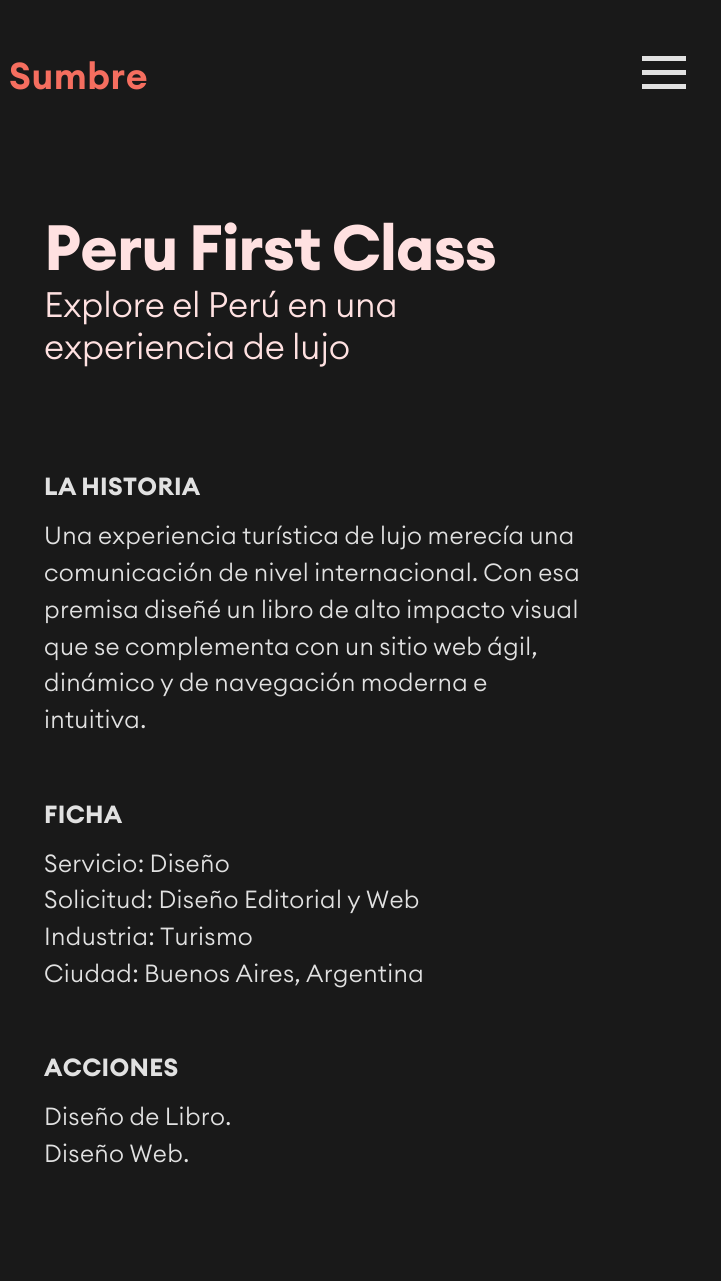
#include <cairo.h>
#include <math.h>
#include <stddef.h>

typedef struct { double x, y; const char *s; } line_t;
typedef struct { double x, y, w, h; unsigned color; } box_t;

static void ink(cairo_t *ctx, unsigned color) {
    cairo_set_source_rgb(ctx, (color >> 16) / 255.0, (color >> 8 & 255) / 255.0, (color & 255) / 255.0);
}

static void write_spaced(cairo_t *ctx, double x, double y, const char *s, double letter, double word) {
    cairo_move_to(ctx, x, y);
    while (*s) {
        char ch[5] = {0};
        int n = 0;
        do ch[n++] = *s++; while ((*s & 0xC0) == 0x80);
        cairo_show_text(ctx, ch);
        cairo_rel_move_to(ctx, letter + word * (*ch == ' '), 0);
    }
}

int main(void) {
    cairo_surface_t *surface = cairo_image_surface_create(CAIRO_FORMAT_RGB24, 721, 1281);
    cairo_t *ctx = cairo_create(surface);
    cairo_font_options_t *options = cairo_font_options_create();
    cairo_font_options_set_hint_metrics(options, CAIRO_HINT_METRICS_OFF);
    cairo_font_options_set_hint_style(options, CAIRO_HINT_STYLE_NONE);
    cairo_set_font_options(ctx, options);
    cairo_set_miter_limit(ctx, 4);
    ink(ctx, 0x191919);
    cairo_paint(ctx);
    cairo_select_font_face(ctx, "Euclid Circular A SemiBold", CAIRO_FONT_SLANT_NORMAL, CAIRO_FONT_WEIGHT_NORMAL);
    cairo_set_font_size(ctx, 37);
    ink(ctx, 0xF56E5F);
    write_spaced(ctx, 9, 89, "Sumbre", 0.5, 0);
    {
        static const box_t items[] = {
            {642, 56, 44, 5, 0xE1E1E1},
            {642, 70, 44, 5, 0xE1E1E1},
            {642, 84, 44, 5, 0xE1E1E1},
        };
        for (size_t i = 0; i < sizeof items / sizeof *items; i++) {
            ink(ctx, items[i].color);
            cairo_rectangle(ctx, items[i].x, items[i].y, items[i].w, items[i].h);
            cairo_fill(ctx);
        }
    }
    cairo_select_font_face(ctx, "Euclid Circular A", CAIRO_FONT_SLANT_NORMAL, CAIRO_FONT_WEIGHT_BOLD);
    cairo_set_font_size(ctx, 63);
    ink(ctx, 0xFFE1E1);
    write_spaced(ctx, 44, 270, "Peru First Class", -1, -2);
    cairo_select_font_face(ctx, "Euclid Circular A Light", CAIRO_FONT_SLANT_NORMAL, CAIRO_FONT_WEIGHT_NORMAL);
    cairo_set_font_size(ctx, 35);
    write_spaced(ctx, 44, 317, "Explore el Perú en una", -0.2, -1);
    write_spaced(ctx, 44, 359, "experiencia de lujo", -0.2, -1);
    cairo_select_font_face(ctx, "Euclid Circular A", CAIRO_FONT_SLANT_NORMAL, CAIRO_FONT_WEIGHT_BOLD);
    cairo_set_font_size(ctx, 24.5);
    ink(ctx, 0xE1E1E1);
    write_spaced(ctx, 44, 495, "LA HISTORIA", 0.35, -1.25);
    cairo_select_font_face(ctx, "Euclid Circular A Light", CAIRO_FONT_SLANT_NORMAL, CAIRO_FONT_WEIGHT_NORMAL);
    {
        static const line_t items[] = {
            {44, 544, "Una experiencia turística de lujo merecía una"},
            {44, 581, "comunicación de nivel internacional. Con esa"},
            {44, 618, "premisa diseñé un libro de alto impacto visual"},
            {44, 655, "que se complementa con un sitio web ágil,"},
            {44, 691, "dinámico y de navegación moderna e"},
        };
        for (size_t i = 0; i < sizeof items / sizeof *items; i++) {
            write_spaced(ctx, items[i].x, items[i].y, items[i].s, 0.35, -1.25);
        }
    }
    write_spaced(ctx, 44, 728, "intuitiva.", 0.35, 0);
    cairo_select_font_face(ctx, "Euclid Circular A", CAIRO_FONT_SLANT_NORMAL, CAIRO_FONT_WEIGHT_BOLD);
    write_spaced(ctx, 44, 823, "FICHA", 0.35, 0);
    cairo_select_font_face(ctx, "Euclid Circular A Light", CAIRO_FONT_SLANT_NORMAL, CAIRO_FONT_WEIGHT_NORMAL);
    {
        static const line_t items[] = {
            {44, 872, "Servicio: Diseño"},
            {44, 908, "Solicitud: Diseño Editorial y Web"},
            {44, 945, "Industria: Turismo"},
            {44, 982, "Ciudad: Buenos Aires, Argentina"},
        };
        for (size_t i = 0; i < sizeof items / sizeof *items; i++) {
            write_spaced(ctx, items[i].x, items[i].y, items[i].s, 0.35, -1.25);
        }
    }
    cairo_select_font_face(ctx, "Euclid Circular A", CAIRO_FONT_SLANT_NORMAL, CAIRO_FONT_WEIGHT_BOLD);
    write_spaced(ctx, 44, 1076, "ACCIONES", 0.35, 0);
    cairo_select_font_face(ctx, "Euclid Circular A Light", CAIRO_FONT_SLANT_NORMAL, CAIRO_FONT_WEIGHT_NORMAL);
    write_spaced(ctx, 44, 1125, "Diseño de Libro.", 0.35, -1.25);
    write_spaced(ctx, 44, 1162, "Diseño Web.", 0.35, -1.25);
    cairo_surface_write_to_png(surface, "image.png");
    cairo_font_options_destroy(options);
    cairo_destroy(ctx);
    cairo_surface_destroy(surface);
    return 0;
}
